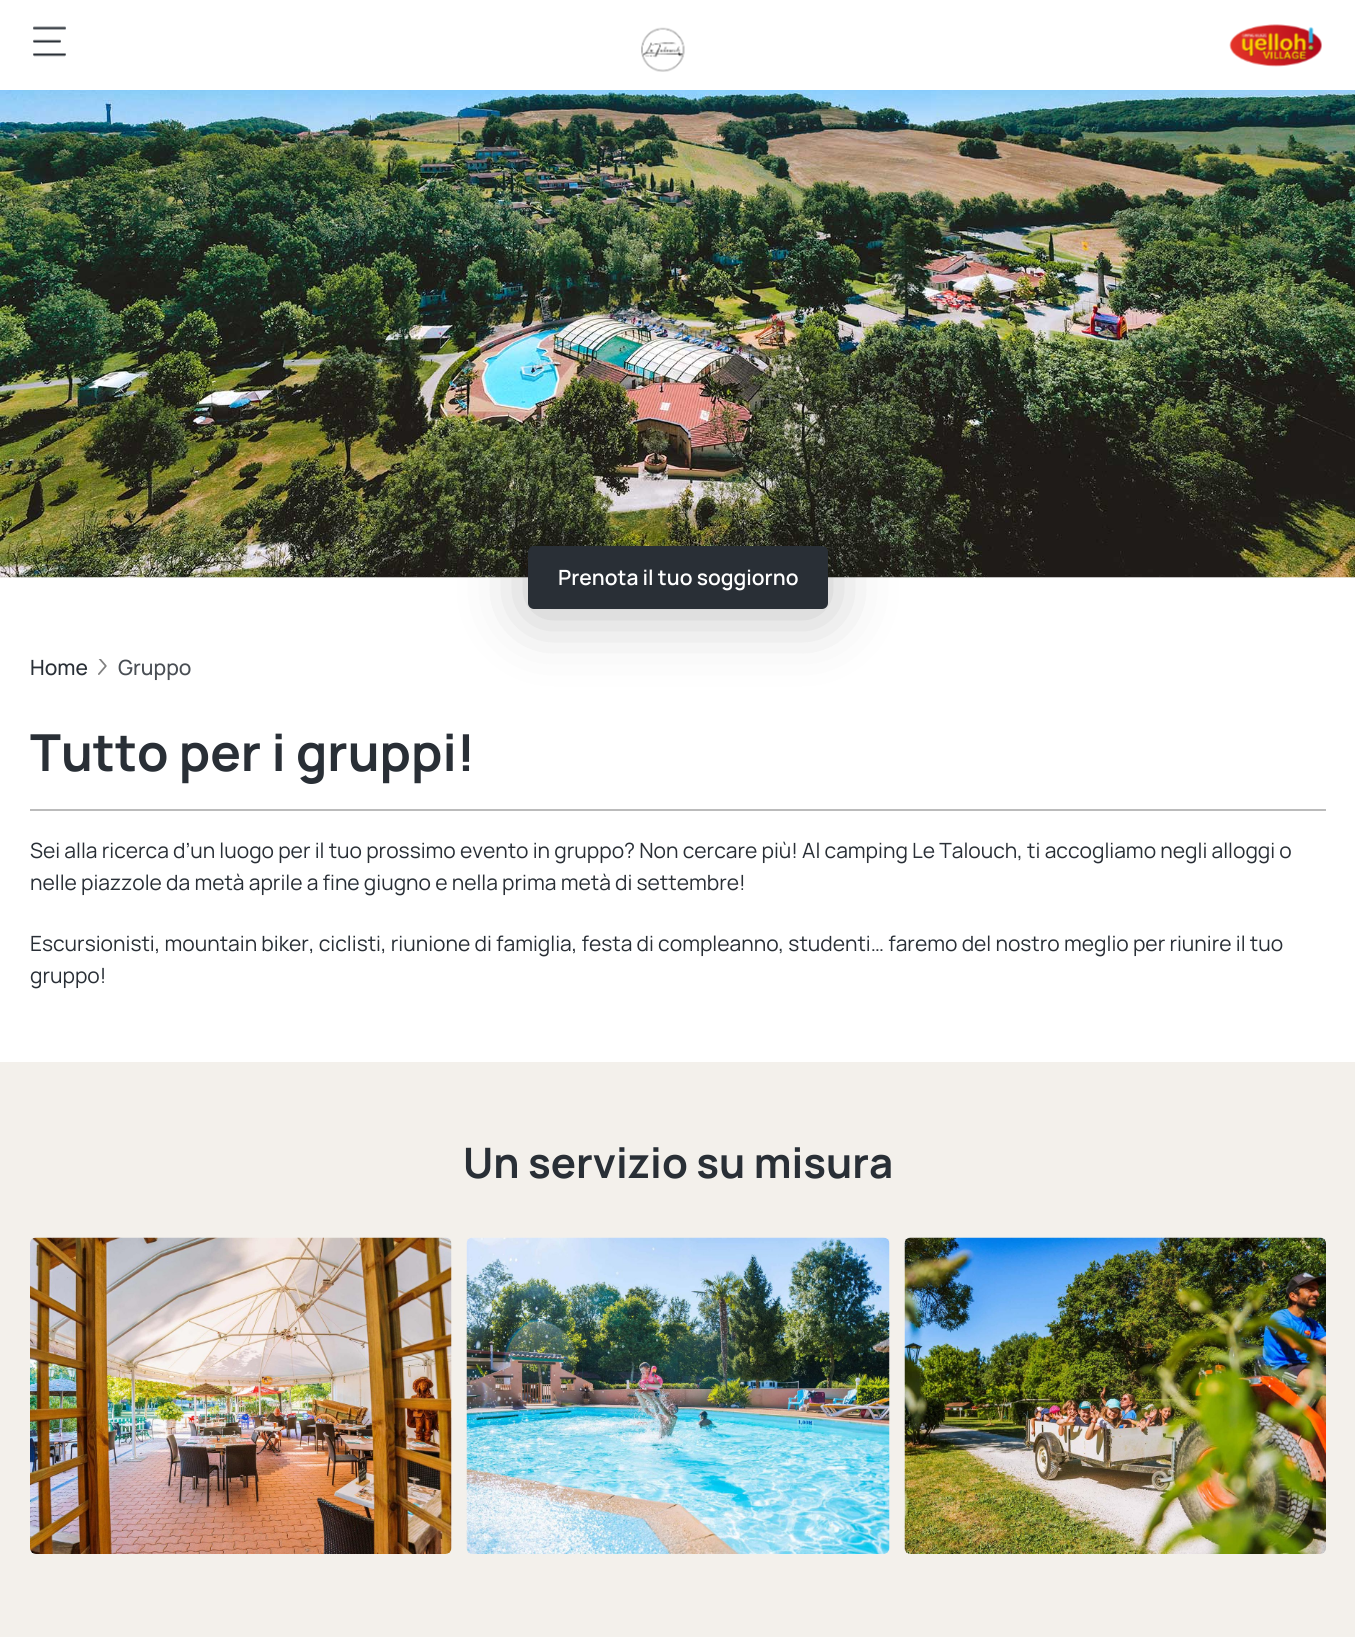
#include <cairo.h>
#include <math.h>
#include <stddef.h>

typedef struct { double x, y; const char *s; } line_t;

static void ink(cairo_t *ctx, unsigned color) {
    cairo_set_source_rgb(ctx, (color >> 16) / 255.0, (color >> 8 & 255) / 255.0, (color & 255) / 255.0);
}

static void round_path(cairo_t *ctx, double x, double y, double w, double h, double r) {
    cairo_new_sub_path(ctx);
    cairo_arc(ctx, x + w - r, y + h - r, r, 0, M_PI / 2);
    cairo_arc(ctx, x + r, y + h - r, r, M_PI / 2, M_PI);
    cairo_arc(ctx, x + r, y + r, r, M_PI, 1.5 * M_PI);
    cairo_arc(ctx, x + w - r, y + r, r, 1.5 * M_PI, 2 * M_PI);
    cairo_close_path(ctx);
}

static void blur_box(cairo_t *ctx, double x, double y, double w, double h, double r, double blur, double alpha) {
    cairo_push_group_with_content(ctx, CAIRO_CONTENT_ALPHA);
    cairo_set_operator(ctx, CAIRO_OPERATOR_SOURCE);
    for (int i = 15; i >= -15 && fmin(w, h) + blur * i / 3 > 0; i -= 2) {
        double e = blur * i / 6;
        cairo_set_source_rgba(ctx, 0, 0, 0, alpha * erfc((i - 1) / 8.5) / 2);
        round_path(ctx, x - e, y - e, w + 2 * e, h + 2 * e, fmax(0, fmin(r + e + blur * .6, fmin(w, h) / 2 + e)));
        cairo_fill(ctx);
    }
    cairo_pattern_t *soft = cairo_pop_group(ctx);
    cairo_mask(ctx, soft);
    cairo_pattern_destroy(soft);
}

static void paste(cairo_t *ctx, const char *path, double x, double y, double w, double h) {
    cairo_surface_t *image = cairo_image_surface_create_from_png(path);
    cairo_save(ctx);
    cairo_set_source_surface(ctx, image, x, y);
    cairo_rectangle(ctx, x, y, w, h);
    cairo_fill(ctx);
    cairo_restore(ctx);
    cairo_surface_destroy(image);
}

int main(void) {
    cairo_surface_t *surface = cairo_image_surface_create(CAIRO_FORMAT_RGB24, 1355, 1637);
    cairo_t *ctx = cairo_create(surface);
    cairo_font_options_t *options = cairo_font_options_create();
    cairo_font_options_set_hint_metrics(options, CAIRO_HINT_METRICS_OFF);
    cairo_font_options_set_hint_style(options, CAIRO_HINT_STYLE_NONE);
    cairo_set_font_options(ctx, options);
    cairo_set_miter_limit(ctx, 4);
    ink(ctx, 0xFFFFFF);
    cairo_paint(ctx);
    paste(ctx, "media/1.png", 33, 26, 33, 31);
    paste(ctx, "media/2.png", 641, 27, 44, 45);
    paste(ctx, "media/3.png", 1229, 24, 93, 43);
    ink(ctx, 0xF5F5F5);
    cairo_rectangle(ctx, 0, 577, 1355, 1);
    cairo_fill(ctx);
    paste(ctx, "media/4.png", 0, 90, 1355, 488);
    ink(ctx, 0x000000);
    blur_box(ctx, 528, 552, 300, 63, 6, 33, 0.25);
    ink(ctx, 0x292F36);
    round_path(ctx, 528, 546, 300, 63, 6);
    cairo_fill(ctx);
    cairo_select_font_face(ctx, "Manrope SemiBold", CAIRO_FONT_SLANT_NORMAL, CAIRO_FONT_WEIGHT_NORMAL);
    cairo_set_font_size(ctx, 21);
    ink(ctx, 0xFFFFFF);
    cairo_move_to(ctx, 558, 585);
    cairo_show_text(ctx, "Prenota il tuo soggiorno");
    cairo_select_font_face(ctx, "Manrope Medium", CAIRO_FONT_SLANT_NORMAL, CAIRO_FONT_WEIGHT_NORMAL);
    ink(ctx, 0x292F36);
    cairo_move_to(ctx, 30, 675);
    cairo_show_text(ctx, "Home");
    paste(ctx, "media/5.png", 98, 659, 9, 16);
    ink(ctx, 0x494E54);
    cairo_move_to(ctx, 118, 675);
    cairo_show_text(ctx, "Gruppo");
    ink(ctx, 0xBBBBBB);
    cairo_rectangle(ctx, 30, 809, 1296, 2);
    cairo_fill(ctx);
    cairo_select_font_face(ctx, "Manrope", CAIRO_FONT_SLANT_NORMAL, CAIRO_FONT_WEIGHT_BOLD);
    cairo_set_font_size(ctx, 51);
    ink(ctx, 0x292F36);
    cairo_move_to(ctx, 30, 771);
    cairo_show_text(ctx, "Tutto per i gruppi!");
    cairo_select_font_face(ctx, "Manrope", CAIRO_FONT_SLANT_NORMAL, CAIRO_FONT_WEIGHT_NORMAL);
    cairo_set_font_size(ctx, 21);
    {
        static const line_t items[] = {
            {30, 858, "Sei alla ricerca d’un luogo per il tuo prossimo evento in gruppo? Non cercare più! Al camping Le Talouch, ti accogliamo negli alloggi o"},
            {30, 890, "nelle piazzole da metà aprile a fine giugno e nella prima metà di settembre!"},
            {30, 951, "Escursionisti, mountain biker, ciclisti, riunione di famiglia, festa di compleanno, studenti… faremo del nostro meglio per riunire il tuo"},
            {30, 983, "gruppo!"},
        };
        for (size_t i = 0; i < sizeof items / sizeof *items; i++) {
            cairo_move_to(ctx, items[i].x, items[i].y);
            cairo_show_text(ctx, items[i].s);
        }
    }
    ink(ctx, 0xF3F0EB);
    cairo_rectangle(ctx, 0, 1062, 1355, 575);
    cairo_fill(ctx);
    cairo_select_font_face(ctx, "Manrope", CAIRO_FONT_SLANT_NORMAL, CAIRO_FONT_WEIGHT_BOLD);
    cairo_set_font_size(ctx, 42);
    ink(ctx, 0x292F36);
    cairo_move_to(ctx, 463, 1178);
    cairo_show_text(ctx, "Un servizio su misura");
    paste(ctx, "media/6.png", 30, 1237, 422, 317);
    paste(ctx, "media/7.png", 466, 1237, 424, 317);
    paste(ctx, "media/8.png", 904, 1237, 422, 317);
    cairo_surface_write_to_png(surface, "image.png");
    cairo_font_options_destroy(options);
    cairo_destroy(ctx);
    cairo_surface_destroy(surface);
    return 0;
}
